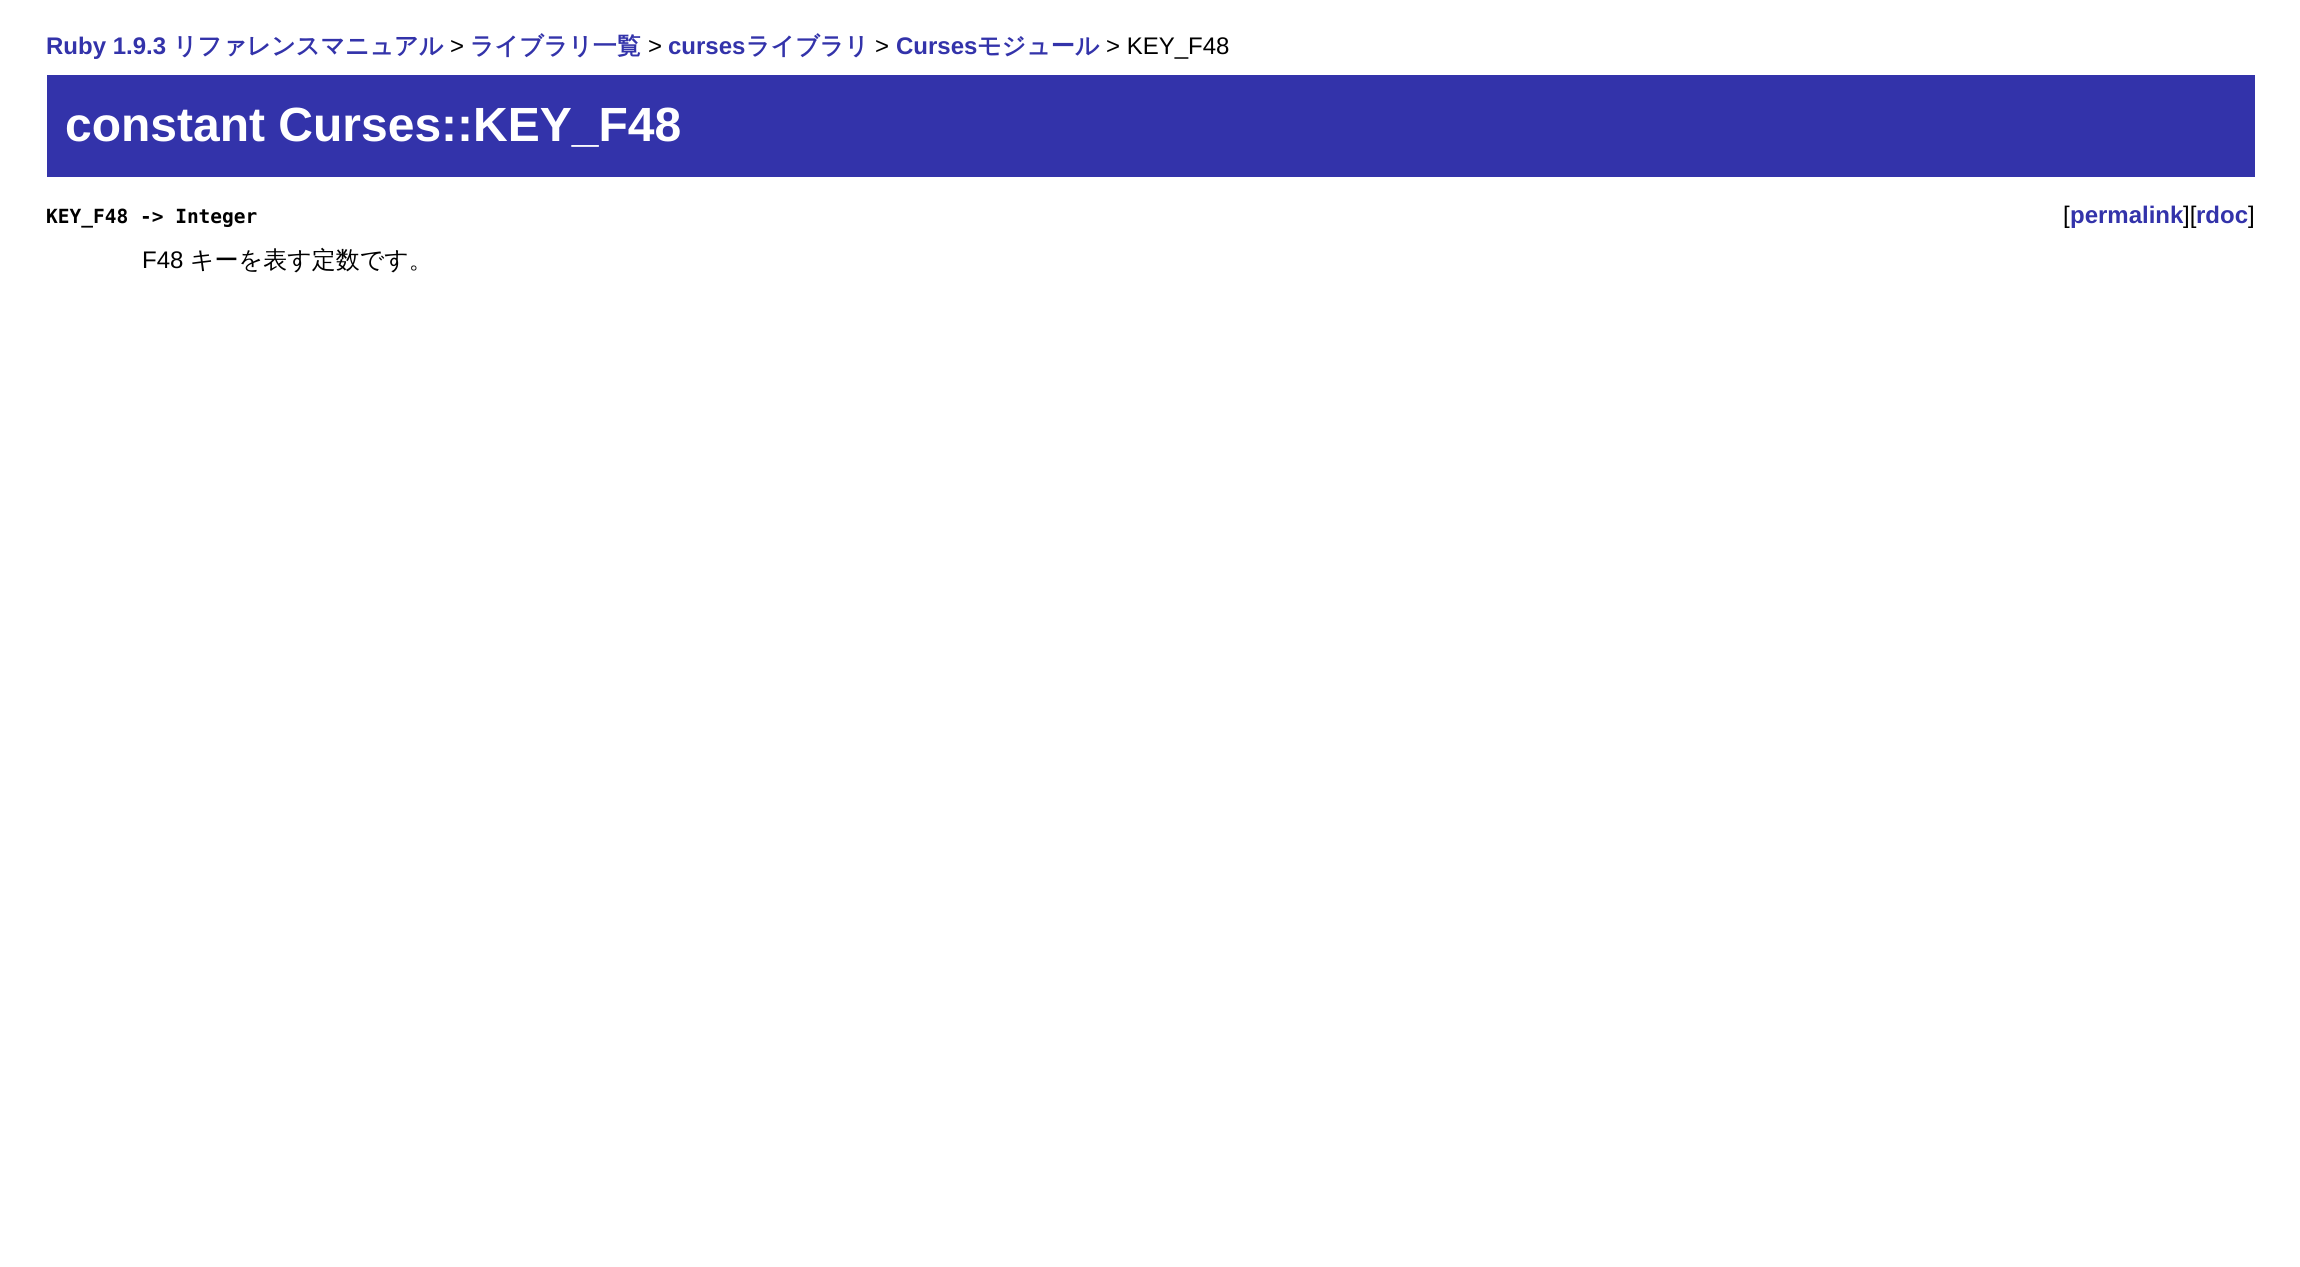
#include <cairo.h>
#include <math.h>
#include <stddef.h>


static void ink(cairo_t *ctx, unsigned color) {
    cairo_set_source_rgb(ctx, (color >> 16) / 255.0, (color >> 8 & 255) / 255.0, (color & 255) / 255.0);
}

int main(void) {
    cairo_surface_t *surface = cairo_image_surface_create(CAIRO_FORMAT_RGB24, 2300, 1267);
    cairo_t *ctx = cairo_create(surface);
    cairo_font_options_t *options = cairo_font_options_create();
    cairo_font_options_set_hint_metrics(options, CAIRO_HINT_METRICS_OFF);
    cairo_font_options_set_hint_style(options, CAIRO_HINT_STYLE_NONE);
    cairo_set_font_options(ctx, options);
    cairo_set_miter_limit(ctx, 4);
    ink(ctx, 0xFFFFFF);
    cairo_paint(ctx);
    cairo_select_font_face(ctx, "Liberation Sans", CAIRO_FONT_SLANT_NORMAL, CAIRO_FONT_WEIGHT_BOLD);
    cairo_set_font_size(ctx, 24);
    ink(ctx, 0x3333AA);
    cairo_move_to(ctx, 46, 54);
    cairo_show_text(ctx, "Ruby 1.9.3");
    cairo_select_font_face(ctx, "WenQuanYi Zen Hei", CAIRO_FONT_SLANT_NORMAL, CAIRO_FONT_WEIGHT_BOLD);
    cairo_move_to(ctx, 173, 54);
    cairo_show_text(ctx, "リファレンスマニュアル");
    cairo_select_font_face(ctx, "Liberation Sans", CAIRO_FONT_SLANT_NORMAL, CAIRO_FONT_WEIGHT_NORMAL);
    ink(ctx, 0x000000);
    cairo_move_to(ctx, 450, 54);
    cairo_show_text(ctx, ">");
    cairo_select_font_face(ctx, "WenQuanYi Zen Hei", CAIRO_FONT_SLANT_NORMAL, CAIRO_FONT_WEIGHT_BOLD);
    ink(ctx, 0x3333AA);
    cairo_move_to(ctx, 470, 54);
    cairo_show_text(ctx, "ライブラリ一覧");
    cairo_select_font_face(ctx, "Liberation Sans", CAIRO_FONT_SLANT_NORMAL, CAIRO_FONT_WEIGHT_NORMAL);
    ink(ctx, 0x000000);
    cairo_move_to(ctx, 648, 54);
    cairo_show_text(ctx, ">");
    cairo_select_font_face(ctx, "Liberation Sans", CAIRO_FONT_SLANT_NORMAL, CAIRO_FONT_WEIGHT_BOLD);
    ink(ctx, 0x3333AA);
    cairo_move_to(ctx, 668, 54);
    cairo_show_text(ctx, "curses");
    cairo_select_font_face(ctx, "WenQuanYi Zen Hei", CAIRO_FONT_SLANT_NORMAL, CAIRO_FONT_WEIGHT_BOLD);
    cairo_move_to(ctx, 746, 54);
    cairo_show_text(ctx, "ライブラリ");
    cairo_select_font_face(ctx, "Liberation Sans", CAIRO_FONT_SLANT_NORMAL, CAIRO_FONT_WEIGHT_NORMAL);
    ink(ctx, 0x000000);
    cairo_move_to(ctx, 875, 54);
    cairo_show_text(ctx, ">");
    cairo_select_font_face(ctx, "Liberation Sans", CAIRO_FONT_SLANT_NORMAL, CAIRO_FONT_WEIGHT_BOLD);
    ink(ctx, 0x3333AA);
    cairo_move_to(ctx, 896, 54);
    cairo_show_text(ctx, "Curses");
    cairo_select_font_face(ctx, "WenQuanYi Zen Hei", CAIRO_FONT_SLANT_NORMAL, CAIRO_FONT_WEIGHT_BOLD);
    cairo_move_to(ctx, 977, 54);
    cairo_show_text(ctx, "モジュール");
    cairo_select_font_face(ctx, "Liberation Sans", CAIRO_FONT_SLANT_NORMAL, CAIRO_FONT_WEIGHT_NORMAL);
    ink(ctx, 0x000000);
    cairo_move_to(ctx, 1106, 54);
    cairo_show_text(ctx, "> KEY_F48");
    ink(ctx, 0x3333AA);
    cairo_rectangle(ctx, 47, 75, 2208, 102);
    cairo_fill(ctx);
    cairo_select_font_face(ctx, "Liberation Sans", CAIRO_FONT_SLANT_NORMAL, CAIRO_FONT_WEIGHT_BOLD);
    cairo_set_font_size(ctx, 48);
    ink(ctx, 0xFFFFFF);
    cairo_move_to(ctx, 65, 141);
    cairo_show_text(ctx, "constant Curses::KEY_F48");
    cairo_select_font_face(ctx, "DejaVu Sans Mono", CAIRO_FONT_SLANT_NORMAL, CAIRO_FONT_WEIGHT_BOLD);
    cairo_set_font_size(ctx, 19.5);
    ink(ctx, 0x000000);
    cairo_move_to(ctx, 46, 223);
    cairo_show_text(ctx, "KEY_F48 -> Integer");
    cairo_select_font_face(ctx, "Liberation Sans", CAIRO_FONT_SLANT_NORMAL, CAIRO_FONT_WEIGHT_NORMAL);
    cairo_set_font_size(ctx, 24);
    cairo_move_to(ctx, 2063, 223);
    cairo_show_text(ctx, "[");
    cairo_select_font_face(ctx, "Liberation Sans", CAIRO_FONT_SLANT_NORMAL, CAIRO_FONT_WEIGHT_BOLD);
    ink(ctx, 0x3333AA);
    cairo_move_to(ctx, 2070, 223);
    cairo_show_text(ctx, "permalink");
    cairo_select_font_face(ctx, "Liberation Sans", CAIRO_FONT_SLANT_NORMAL, CAIRO_FONT_WEIGHT_NORMAL);
    ink(ctx, 0x000000);
    cairo_move_to(ctx, 2183, 223);
    cairo_show_text(ctx, "][");
    cairo_select_font_face(ctx, "Liberation Sans", CAIRO_FONT_SLANT_NORMAL, CAIRO_FONT_WEIGHT_BOLD);
    ink(ctx, 0x3333AA);
    cairo_move_to(ctx, 2196, 223);
    cairo_show_text(ctx, "rdoc");
    cairo_select_font_face(ctx, "Liberation Sans", CAIRO_FONT_SLANT_NORMAL, CAIRO_FONT_WEIGHT_NORMAL);
    ink(ctx, 0x000000);
    cairo_move_to(ctx, 2248, 223);
    cairo_show_text(ctx, "]");
    cairo_move_to(ctx, 142, 268);
    cairo_show_text(ctx, "F48");
    cairo_select_font_face(ctx, "WenQuanYi Zen Hei Medium", CAIRO_FONT_SLANT_NORMAL, CAIRO_FONT_WEIGHT_NORMAL);
    cairo_move_to(ctx, 190, 268);
    cairo_show_text(ctx, "キーを表す定数です。");
    cairo_surface_write_to_png(surface, "image.png");
    cairo_font_options_destroy(options);
    cairo_destroy(ctx);
    cairo_surface_destroy(surface);
    return 0;
}
